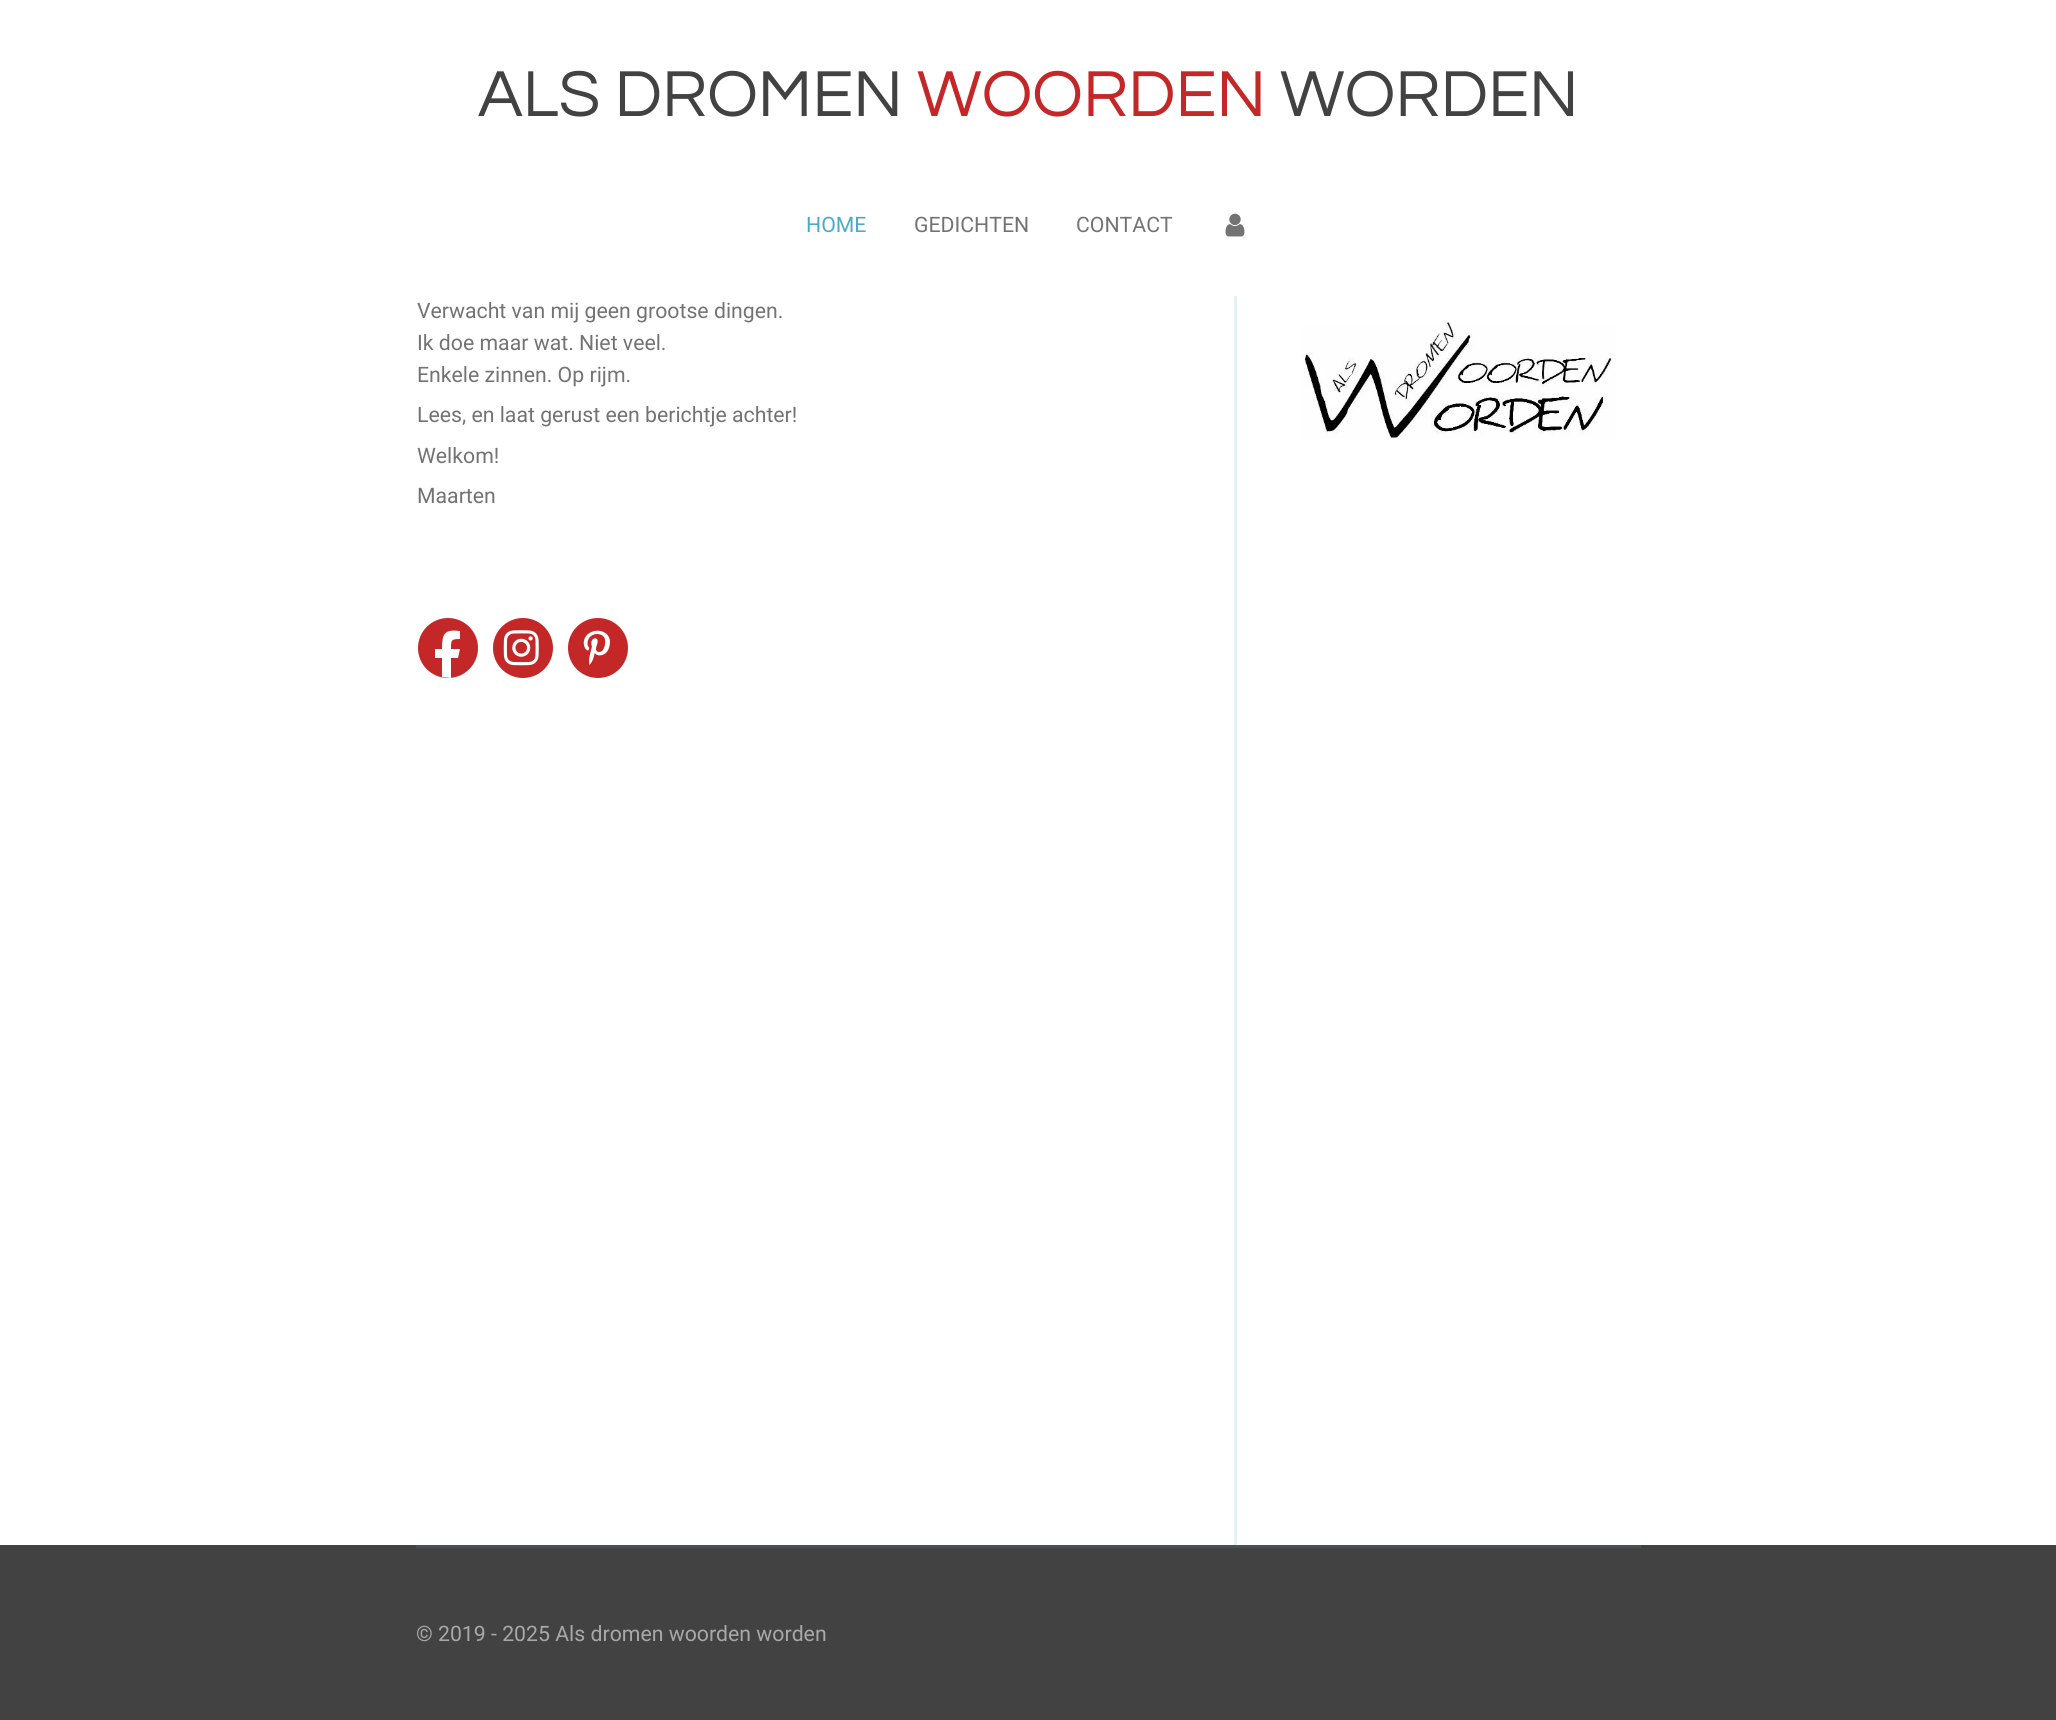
#include <cairo.h>
#include <math.h>
#include <stddef.h>

typedef struct { double x, y; const char *s; } line_t;

static void ink(cairo_t *ctx, unsigned color) {
    cairo_set_source_rgb(ctx, (color >> 16) / 255.0, (color >> 8 & 255) / 255.0, (color & 255) / 255.0);
}

static void paste(cairo_t *ctx, const char *path, double x, double y, double w, double h) {
    cairo_surface_t *image = cairo_image_surface_create_from_png(path);
    cairo_save(ctx);
    cairo_set_source_surface(ctx, image, x, y);
    cairo_rectangle(ctx, x, y, w, h);
    cairo_fill(ctx);
    cairo_restore(ctx);
    cairo_surface_destroy(image);
}

int main(void) {
    cairo_surface_t *surface = cairo_image_surface_create(CAIRO_FORMAT_RGB24, 2056, 1720);
    cairo_t *ctx = cairo_create(surface);
    cairo_font_options_t *options = cairo_font_options_create();
    cairo_font_options_set_hint_metrics(options, CAIRO_HINT_METRICS_OFF);
    cairo_font_options_set_hint_style(options, CAIRO_HINT_STYLE_NONE);
    cairo_set_font_options(ctx, options);
    cairo_set_miter_limit(ctx, 4);
    ink(ctx, 0xFFFFFF);
    cairo_paint(ctx);
    cairo_select_font_face(ctx, "Questrial", CAIRO_FONT_SLANT_NORMAL, CAIRO_FONT_WEIGHT_NORMAL);
    cairo_set_font_size(ctx, 67.5);
    ink(ctx, 0x424242);
    cairo_move_to(ctx, 478, 116);
    cairo_show_text(ctx, "ALS DROMEN");
    ink(ctx, 0xC42727);
    cairo_move_to(ctx, 917, 116);
    cairo_show_text(ctx, "WOORDEN");
    ink(ctx, 0x424242);
    cairo_move_to(ctx, 1280, 116);
    cairo_show_text(ctx, "WORDEN");
    cairo_select_font_face(ctx, "Roboto", CAIRO_FONT_SLANT_NORMAL, CAIRO_FONT_WEIGHT_NORMAL);
    cairo_set_font_size(ctx, 21.25);
    ink(ctx, 0x4CAAC9);
    cairo_move_to(ctx, 806, 232);
    cairo_show_text(ctx, "HOME");
    ink(ctx, 0x737373);
    cairo_move_to(ctx, 914, 232);
    cairo_show_text(ctx, "GEDICHTEN");
    cairo_move_to(ctx, 1076, 232);
    cairo_show_text(ctx, "CONTACT");
    paste(ctx, "media/1.png", 1225, 213, 20, 24);
    {
        static const line_t items[] = {
            {417, 318, "Verwacht van mij geen grootse dingen."},
            {417, 350, "Ik doe maar wat. Niet veel."},
            {417, 382, "Enkele zinnen. Op rijm."},
            {417, 422, "Lees, en laat gerust een berichtje achter!"},
            {417, 463, "Welkom!"},
            {417, 503, "Maarten"},
        };
        for (size_t i = 0; i < sizeof items / sizeof *items; i++) {
            cairo_move_to(ctx, items[i].x, items[i].y);
            cairo_show_text(ctx, items[i].s);
        }
    }
    ink(ctx, 0xC42727);
    cairo_new_path(ctx);
    cairo_arc(ctx, 448, 648, 30, 0, 2 * M_PI);
    cairo_fill(ctx);
    ink(ctx, 0xFFFFFF);
    cairo_new_path(ctx);
    cairo_move_to(ctx, 458, 658);
    cairo_line_to(ctx, 451, 658);
    cairo_line_to(ctx, 451, 678);
    cairo_line_to(ctx, 442, 677);
    cairo_line_to(ctx, 442, 658);
    cairo_line_to(ctx, 435, 658);
    cairo_line_to(ctx, 435, 649);
    cairo_line_to(ctx, 442, 649);
    cairo_curve_to(ctx, 442, 634, 444, 629, 460, 631);
    cairo_line_to(ctx, 460, 639);
    cairo_curve_to(ctx, 451, 639, 451, 640, 451, 649);
    cairo_line_to(ctx, 460, 649);
    cairo_close_path(ctx);
    cairo_fill(ctx);
    ink(ctx, 0xC42727);
    cairo_arc(ctx, 523, 648, 30, 0, 2 * M_PI);
    cairo_fill(ctx);
    paste(ctx, "media/2.png", 503, 630, 36, 36);
    cairo_arc(ctx, 598, 648, 30, 0, 2 * M_PI);
    cairo_fill(ctx);
    paste(ctx, "media/3.png", 583, 630, 27, 35);
    ink(ctx, 0xE4F2F7);
    cairo_rectangle(ctx, 1234, 296, 3, 1249);
    cairo_fill(ctx);
    paste(ctx, "media/4.png", 1302, 322, 314, 117);
    ink(ctx, 0x424242);
    cairo_rectangle(ctx, 0, 1545, 2056, 175);
    cairo_fill(ctx);
    ink(ctx, 0x445256);
    cairo_rectangle(ctx, 416, 1545, 1225, 3);
    cairo_fill(ctx);
    ink(ctx, 0xA8A8A8);
    cairo_move_to(ctx, 416, 1641);
    cairo_show_text(ctx, "© 2019 - 2025 Als dromen woorden worden");
    cairo_surface_write_to_png(surface, "image.png");
    cairo_font_options_destroy(options);
    cairo_destroy(ctx);
    cairo_surface_destroy(surface);
    return 0;
}
